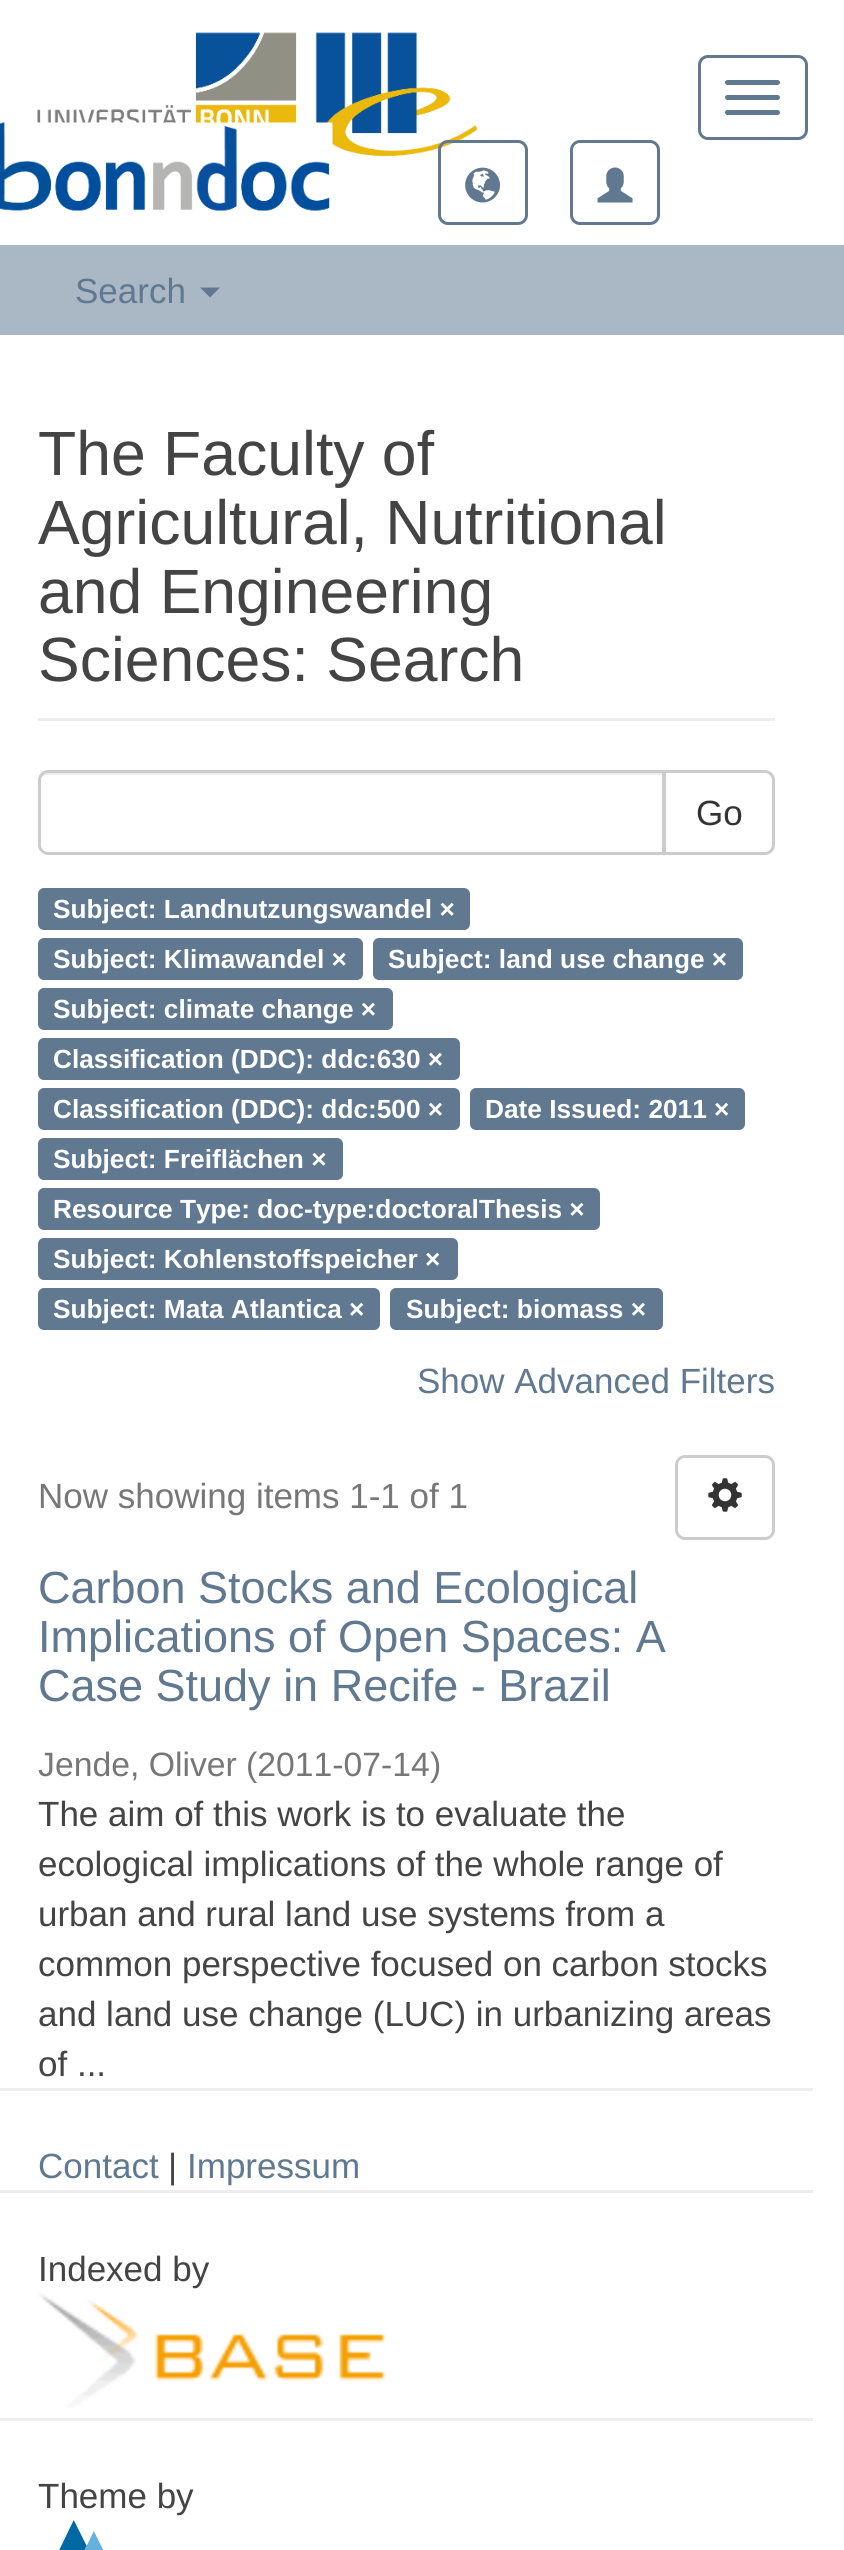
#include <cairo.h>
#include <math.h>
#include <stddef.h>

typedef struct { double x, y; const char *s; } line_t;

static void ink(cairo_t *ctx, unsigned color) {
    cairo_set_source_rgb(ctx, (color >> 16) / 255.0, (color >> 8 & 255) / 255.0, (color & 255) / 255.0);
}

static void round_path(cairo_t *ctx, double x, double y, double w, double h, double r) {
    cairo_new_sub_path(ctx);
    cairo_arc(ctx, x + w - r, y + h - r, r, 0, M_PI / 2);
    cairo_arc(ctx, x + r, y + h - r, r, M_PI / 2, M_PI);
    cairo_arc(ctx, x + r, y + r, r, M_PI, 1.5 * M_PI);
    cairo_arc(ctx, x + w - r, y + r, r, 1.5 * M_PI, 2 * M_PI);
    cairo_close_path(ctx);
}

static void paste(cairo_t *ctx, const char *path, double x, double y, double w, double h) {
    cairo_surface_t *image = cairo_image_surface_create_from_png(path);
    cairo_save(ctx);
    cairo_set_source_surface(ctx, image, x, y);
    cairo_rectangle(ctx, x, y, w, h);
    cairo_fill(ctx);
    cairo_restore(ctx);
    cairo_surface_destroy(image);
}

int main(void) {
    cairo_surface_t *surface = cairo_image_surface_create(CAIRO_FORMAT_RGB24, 844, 2550);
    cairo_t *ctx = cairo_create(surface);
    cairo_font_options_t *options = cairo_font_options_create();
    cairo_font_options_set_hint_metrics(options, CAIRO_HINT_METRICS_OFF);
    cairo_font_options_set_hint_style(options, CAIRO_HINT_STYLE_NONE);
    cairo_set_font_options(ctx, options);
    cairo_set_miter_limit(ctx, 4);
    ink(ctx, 0xFFFFFF);
    cairo_paint(ctx);
    paste(ctx, "media/1.png", 37, 32, 441, 125);
    round_path(ctx, 699.5, 56.5, 107, 82, 8.5);
    ink(ctx, 0x607890);
    cairo_set_line_width(ctx, 3);
    cairo_stroke(ctx);
    round_path(ctx, 725, 80, 55, 5, 2.5);
    cairo_fill(ctx);
    round_path(ctx, 725, 95, 55, 5, 2.5);
    cairo_fill(ctx);
    round_path(ctx, 725, 110, 55, 5, 2.5);
    cairo_fill(ctx);
    paste(ctx, "media/2.png", 0, 122, 333, 89);
    round_path(ctx, 439.5, 141.5, 87, 82, 8.5);
    cairo_stroke(ctx);
    paste(ctx, "media/3.png", 465, 167, 35, 36);
    round_path(ctx, 571.5, 141.5, 87, 82, 8.5);
    cairo_stroke(ctx);
    paste(ctx, "media/4.png", 597, 167, 36, 36);
    ink(ctx, 0xAAB8C6);
    cairo_rectangle(ctx, 0, 245, 844, 90);
    cairo_fill(ctx);
    cairo_select_font_face(ctx, "Liberation Sans", CAIRO_FONT_SLANT_NORMAL, CAIRO_FONT_WEIGHT_NORMAL);
    cairo_set_font_size(ctx, 35);
    ink(ctx, 0x607890);
    cairo_move_to(ctx, 75, 303);
    cairo_show_text(ctx, "Search");
    cairo_new_path(ctx);
    cairo_move_to(ctx, 200, 287.5);
    cairo_line_to(ctx, 220, 287.5);
    cairo_line_to(ctx, 210, 297.5);
    cairo_close_path(ctx);
    cairo_fill(ctx);
    ink(ctx, 0xEEEEEE);
    cairo_rectangle(ctx, 38, 718, 737, 3);
    cairo_fill(ctx);
    cairo_set_font_size(ctx, 62.5);
    ink(ctx, 0x444444);
    {
        static const line_t items[] = {
            {38, 475, "The Faculty of"},
            {38, 544, "Agricultural, Nutritional"},
            {38, 613, "and Engineering"},
            {38, 681, "Sciences: Search"},
        };
        for (size_t i = 0; i < sizeof items / sizeof *items; i++) {
            cairo_move_to(ctx, items[i].x, items[i].y);
            cairo_show_text(ctx, items[i].s);
        }
    }
    cairo_new_path(ctx);
    cairo_move_to(ctx, 664.5, 771.5);
    cairo_line_to(ctx, 765, 771.5);
    cairo_curve_to(ctx, 769.5, 771.5, 773.5, 775.5, 773.5, 780);
    cairo_line_to(ctx, 773.5, 845);
    cairo_curve_to(ctx, 773.5, 849.5, 769.5, 853.5, 765, 853.5);
    cairo_line_to(ctx, 664.5, 853.5);
    cairo_close_path(ctx);
    ink(ctx, 0xCCCCCC);
    cairo_stroke(ctx);
    ink(ctx, 0xFFFFFF);
    cairo_new_path(ctx);
    cairo_move_to(ctx, 48, 770);
    cairo_line_to(ctx, 665, 770);
    cairo_line_to(ctx, 665, 855);
    cairo_line_to(ctx, 48, 855);
    cairo_curve_to(ctx, 42.5, 855, 38, 850.5, 38, 845);
    cairo_line_to(ctx, 38, 780);
    cairo_curve_to(ctx, 38, 774.5, 42.5, 770, 48, 770);
    cairo_close_path(ctx);
    cairo_fill(ctx);
    ink(ctx, 0xECECEC);
    cairo_new_path(ctx);
    cairo_move_to(ctx, 48, 775);
    cairo_line_to(ctx, 662, 775);
    cairo_line_to(ctx, 662, 853);
    cairo_line_to(ctx, 663, 853);
    cairo_line_to(ctx, 663, 773);
    cairo_line_to(ctx, 48, 773);
    cairo_curve_to(ctx, 43, 773, 40, 777, 40, 782);
    cairo_curve_to(ctx, 40, 778, 43, 775, 48, 775);
    cairo_close_path(ctx);
    cairo_fill(ctx);
    cairo_new_path(ctx);
    cairo_move_to(ctx, 48, 771.5);
    cairo_line_to(ctx, 663.5, 771.5);
    cairo_line_to(ctx, 663.5, 853.5);
    cairo_line_to(ctx, 48, 853.5);
    cairo_curve_to(ctx, 43.5, 853.5, 39.5, 849.5, 39.5, 845);
    cairo_line_to(ctx, 39.5, 780);
    cairo_curve_to(ctx, 39.5, 775.5, 43.5, 771.5, 48, 771.5);
    cairo_close_path(ctx);
    ink(ctx, 0xCCCCCC);
    cairo_stroke(ctx);
    cairo_set_font_size(ctx, 35);
    ink(ctx, 0x333333);
    cairo_move_to(ctx, 696, 825);
    cairo_show_text(ctx, "Go");
    ink(ctx, 0x607890);
    round_path(ctx, 38, 888, 432, 42, 6);
    cairo_fill(ctx);
    cairo_select_font_face(ctx, "Liberation Sans", CAIRO_FONT_SLANT_NORMAL, CAIRO_FONT_WEIGHT_BOLD);
    cairo_set_font_size(ctx, 26.25);
    ink(ctx, 0xFFFFFF);
    cairo_move_to(ctx, 53, 918);
    cairo_show_text(ctx, "Subject: Landnutzungswandel ×");
    ink(ctx, 0x607890);
    round_path(ctx, 38, 938, 325, 42, 6);
    cairo_fill(ctx);
    ink(ctx, 0xFFFFFF);
    cairo_move_to(ctx, 53, 968);
    cairo_show_text(ctx, "Subject: Klimawandel ×");
    ink(ctx, 0x607890);
    round_path(ctx, 373, 938, 370, 42, 6);
    cairo_fill(ctx);
    ink(ctx, 0xFFFFFF);
    cairo_move_to(ctx, 388, 968);
    cairo_show_text(ctx, "Subject: land use change ×");
    ink(ctx, 0x607890);
    round_path(ctx, 38, 988, 355, 42, 6);
    cairo_fill(ctx);
    ink(ctx, 0xFFFFFF);
    cairo_move_to(ctx, 53, 1018);
    cairo_show_text(ctx, "Subject: climate change ×");
    ink(ctx, 0x607890);
    round_path(ctx, 38, 1038, 422, 42, 6);
    cairo_fill(ctx);
    ink(ctx, 0xFFFFFF);
    cairo_move_to(ctx, 53, 1068);
    cairo_show_text(ctx, "Classification (DDC): ddc:630 ×");
    ink(ctx, 0x607890);
    round_path(ctx, 38, 1088, 422, 42, 6);
    cairo_fill(ctx);
    ink(ctx, 0xFFFFFF);
    cairo_move_to(ctx, 53, 1118);
    cairo_show_text(ctx, "Classification (DDC): ddc:500 ×");
    ink(ctx, 0x607890);
    round_path(ctx, 470, 1088, 275, 42, 6);
    cairo_fill(ctx);
    ink(ctx, 0xFFFFFF);
    cairo_move_to(ctx, 485, 1118);
    cairo_show_text(ctx, "Date Issued: 2011 ×");
    ink(ctx, 0x607890);
    round_path(ctx, 38, 1138, 305, 42, 6);
    cairo_fill(ctx);
    ink(ctx, 0xFFFFFF);
    cairo_move_to(ctx, 53, 1168);
    cairo_show_text(ctx, "Subject: Freiflächen ×");
    ink(ctx, 0x607890);
    round_path(ctx, 38, 1188, 562, 42, 6);
    cairo_fill(ctx);
    ink(ctx, 0xFFFFFF);
    cairo_move_to(ctx, 53, 1218);
    cairo_show_text(ctx, "Resource Type: doc-type:doctoralThesis ×");
    ink(ctx, 0x607890);
    round_path(ctx, 38, 1238, 420, 42, 6);
    cairo_fill(ctx);
    ink(ctx, 0xFFFFFF);
    cairo_move_to(ctx, 53, 1268);
    cairo_show_text(ctx, "Subject: Kohlenstoffspeicher ×");
    ink(ctx, 0x607890);
    round_path(ctx, 38, 1288, 342, 42, 6);
    cairo_fill(ctx);
    ink(ctx, 0xFFFFFF);
    cairo_move_to(ctx, 53, 1318);
    cairo_show_text(ctx, "Subject: Mata Atlantica ×");
    ink(ctx, 0x607890);
    round_path(ctx, 390, 1288, 273, 42, 6);
    cairo_fill(ctx);
    ink(ctx, 0xFFFFFF);
    cairo_move_to(ctx, 406, 1318);
    cairo_show_text(ctx, "Subject: biomass ×");
    cairo_select_font_face(ctx, "Liberation Sans", CAIRO_FONT_SLANT_NORMAL, CAIRO_FONT_WEIGHT_NORMAL);
    cairo_set_font_size(ctx, 35);
    ink(ctx, 0x607890);
    cairo_move_to(ctx, 417, 1393);
    cairo_show_text(ctx, "Show Advanced Filters");
    ink(ctx, 0x777777);
    cairo_move_to(ctx, 38, 1508);
    cairo_show_text(ctx, "Now showing items 1-1 of 1");
    round_path(ctx, 676.5, 1456.5, 97, 82, 8.5);
    ink(ctx, 0xCCCCCC);
    cairo_stroke(ctx);
    paste(ctx, "media/5.png", 708, 1478, 34, 34);
    cairo_set_font_size(ctx, 45);
    ink(ctx, 0x607890);
    {
        static const line_t items[] = {
            {38, 1603, "Carbon Stocks and Ecological"},
            {38, 1652, "Implications of Open Spaces: A"},
            {38, 1701, "Case Study in Recife - Brazil"},
        };
        for (size_t i = 0; i < sizeof items / sizeof *items; i++) {
            cairo_move_to(ctx, items[i].x, items[i].y);
            cairo_show_text(ctx, items[i].s);
        }
    }
    cairo_set_font_size(ctx, 33.75);
    ink(ctx, 0x777777);
    cairo_move_to(ctx, 38, 1776);
    cairo_show_text(ctx, "Jende, Oliver");
    cairo_move_to(ctx, 246, 1776);
    cairo_show_text(ctx, "(2011-07-14)");
    cairo_set_font_size(ctx, 35);
    ink(ctx, 0x444444);
    {
        static const line_t items[] = {
            {38, 1826, "The aim of this work is to evaluate the"},
            {38, 1876, "ecological implications of the whole range of"},
            {38, 1926, "urban and rural land use systems from a"},
            {38, 1976, "common perspective focused on carbon stocks"},
            {38, 2026, "and land use change (LUC) in urbanizing areas"},
            {38, 2076, "of ..."},
        };
        for (size_t i = 0; i < sizeof items / sizeof *items; i++) {
            cairo_move_to(ctx, items[i].x, items[i].y);
            cairo_show_text(ctx, items[i].s);
        }
    }
    ink(ctx, 0xEEEEEE);
    cairo_rectangle(ctx, 0, 2088, 813, 3);
    cairo_fill(ctx);
    ink(ctx, 0x607890);
    cairo_move_to(ctx, 38, 2178);
    cairo_show_text(ctx, "Contact");
    ink(ctx, 0x444444);
    cairo_move_to(ctx, 168, 2178);
    cairo_show_text(ctx, "|");
    ink(ctx, 0x607890);
    cairo_move_to(ctx, 187, 2178);
    cairo_show_text(ctx, "Impressum");
    ink(ctx, 0xEEEEEE);
    cairo_rectangle(ctx, 0, 2190, 813, 3);
    cairo_fill(ctx);
    ink(ctx, 0x444444);
    cairo_move_to(ctx, 38, 2281);
    cairo_show_text(ctx, "Indexed by");
    paste(ctx, "media/6.png", 37, 2292, 349, 116);
    ink(ctx, 0xEEEEEE);
    cairo_rectangle(ctx, 0, 2418, 813, 3);
    cairo_fill(ctx);
    ink(ctx, 0x444444);
    cairo_move_to(ctx, 38, 2508);
    cairo_show_text(ctx, "Theme by");
    paste(ctx, "media/7.png", 59, 2520, 45, 30);
    cairo_surface_write_to_png(surface, "image.png");
    cairo_font_options_destroy(options);
    cairo_destroy(ctx);
    cairo_surface_destroy(surface);
    return 0;
}
